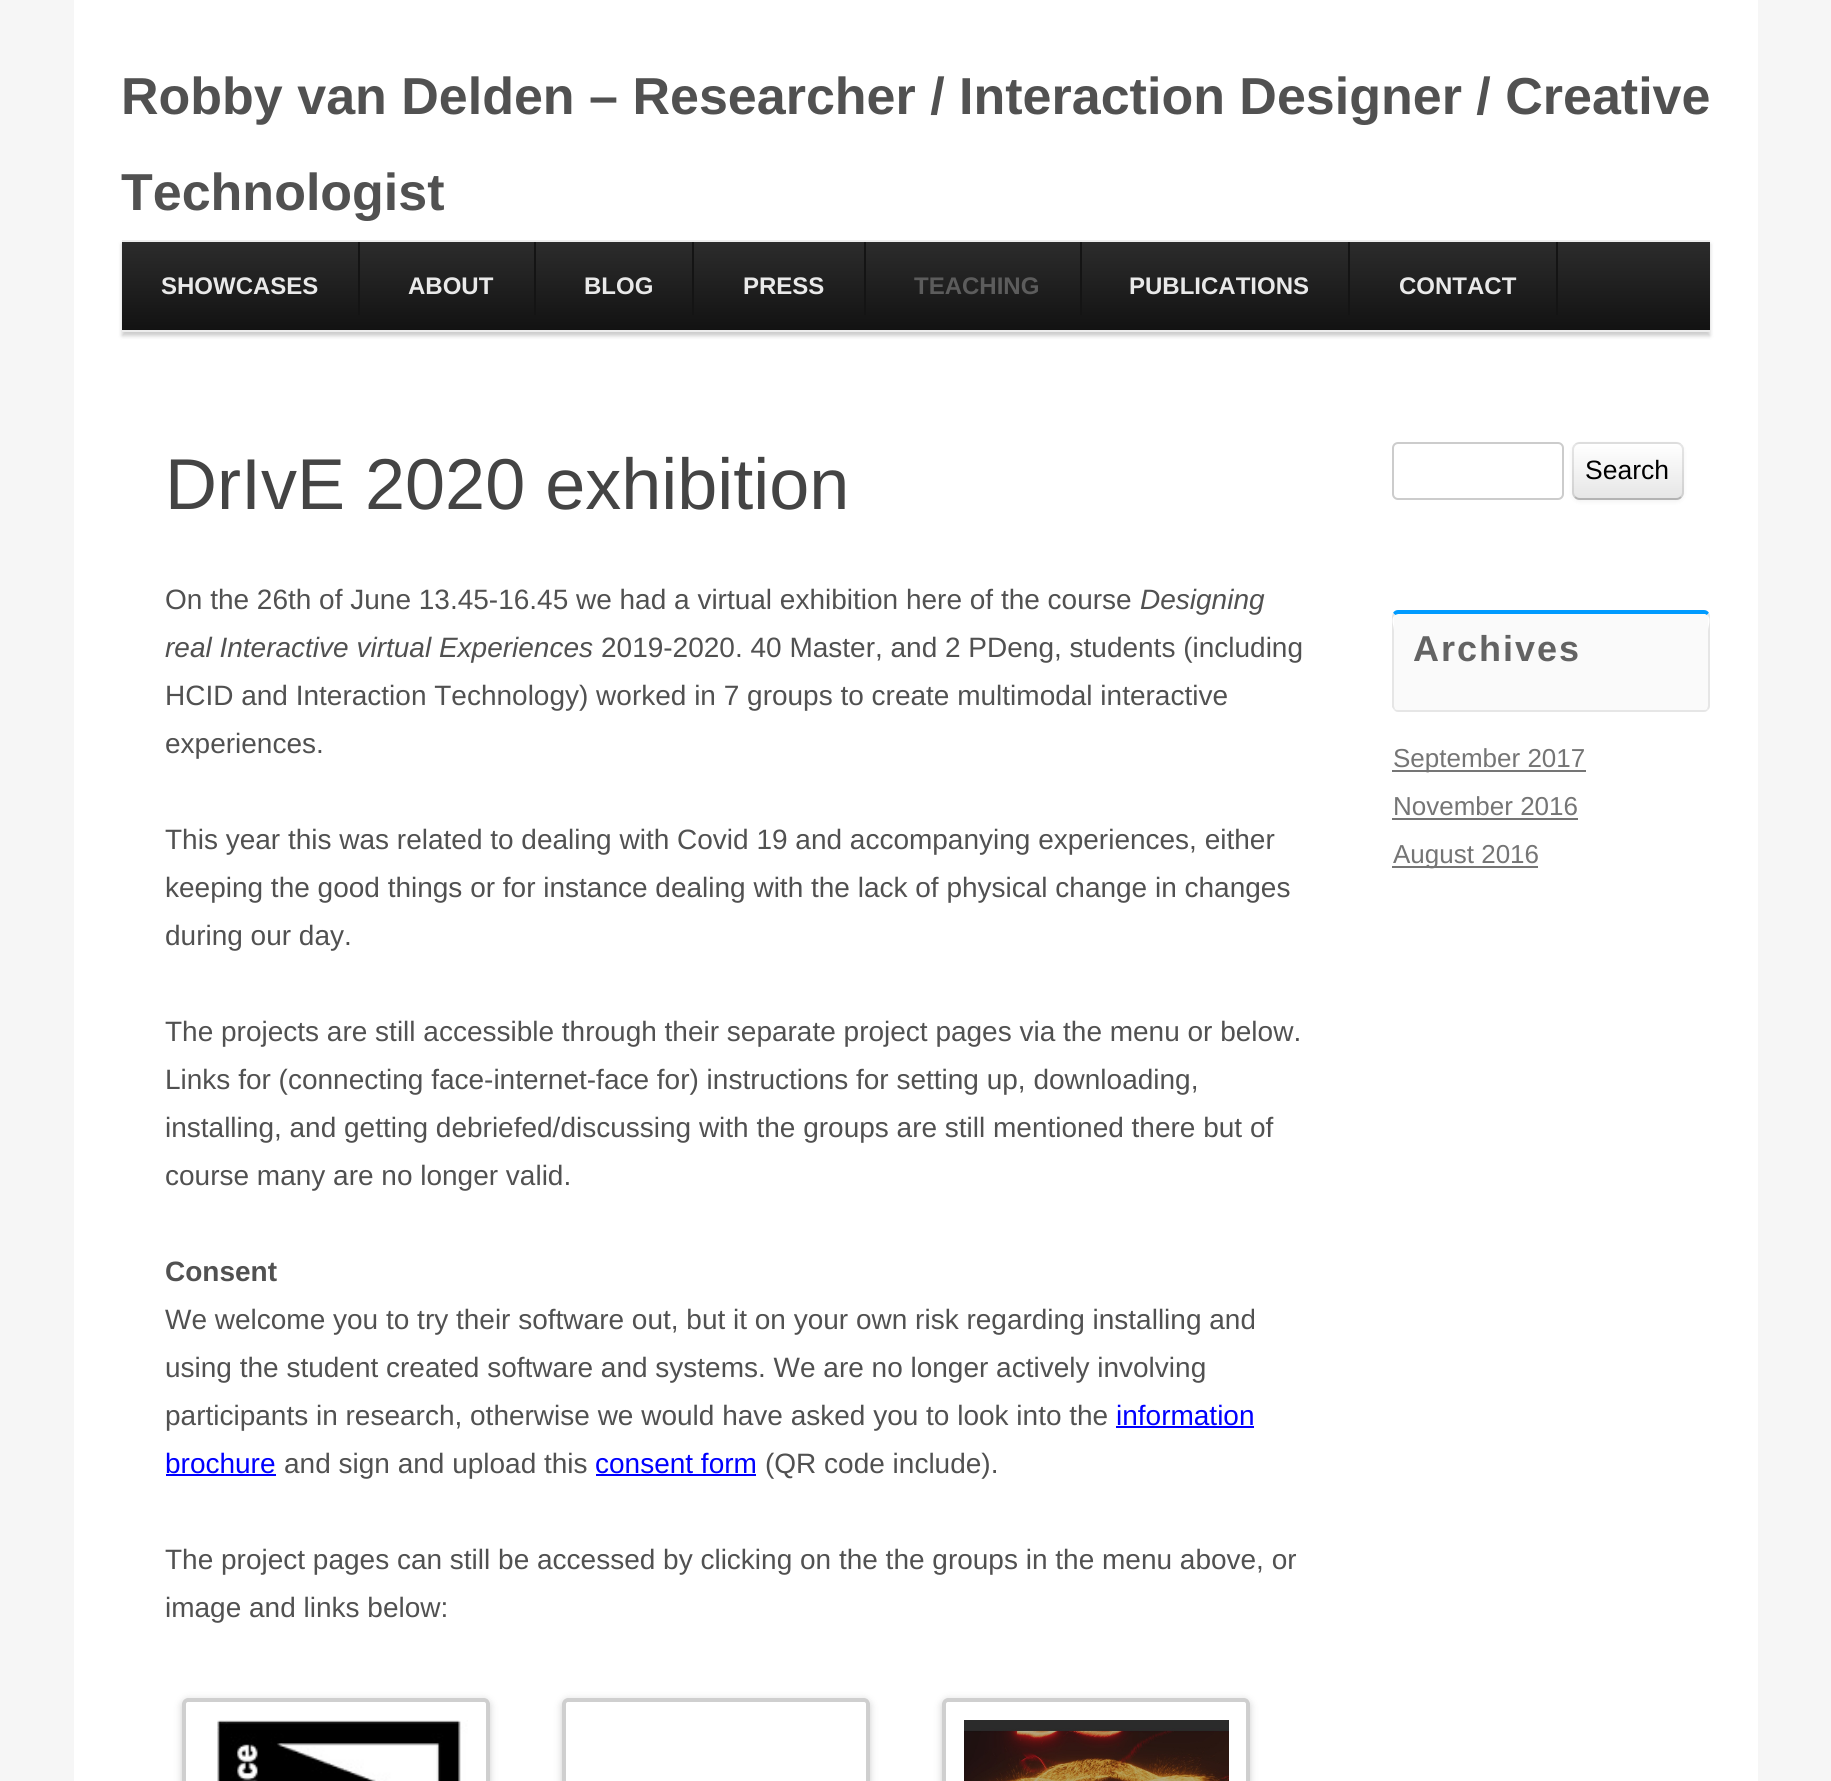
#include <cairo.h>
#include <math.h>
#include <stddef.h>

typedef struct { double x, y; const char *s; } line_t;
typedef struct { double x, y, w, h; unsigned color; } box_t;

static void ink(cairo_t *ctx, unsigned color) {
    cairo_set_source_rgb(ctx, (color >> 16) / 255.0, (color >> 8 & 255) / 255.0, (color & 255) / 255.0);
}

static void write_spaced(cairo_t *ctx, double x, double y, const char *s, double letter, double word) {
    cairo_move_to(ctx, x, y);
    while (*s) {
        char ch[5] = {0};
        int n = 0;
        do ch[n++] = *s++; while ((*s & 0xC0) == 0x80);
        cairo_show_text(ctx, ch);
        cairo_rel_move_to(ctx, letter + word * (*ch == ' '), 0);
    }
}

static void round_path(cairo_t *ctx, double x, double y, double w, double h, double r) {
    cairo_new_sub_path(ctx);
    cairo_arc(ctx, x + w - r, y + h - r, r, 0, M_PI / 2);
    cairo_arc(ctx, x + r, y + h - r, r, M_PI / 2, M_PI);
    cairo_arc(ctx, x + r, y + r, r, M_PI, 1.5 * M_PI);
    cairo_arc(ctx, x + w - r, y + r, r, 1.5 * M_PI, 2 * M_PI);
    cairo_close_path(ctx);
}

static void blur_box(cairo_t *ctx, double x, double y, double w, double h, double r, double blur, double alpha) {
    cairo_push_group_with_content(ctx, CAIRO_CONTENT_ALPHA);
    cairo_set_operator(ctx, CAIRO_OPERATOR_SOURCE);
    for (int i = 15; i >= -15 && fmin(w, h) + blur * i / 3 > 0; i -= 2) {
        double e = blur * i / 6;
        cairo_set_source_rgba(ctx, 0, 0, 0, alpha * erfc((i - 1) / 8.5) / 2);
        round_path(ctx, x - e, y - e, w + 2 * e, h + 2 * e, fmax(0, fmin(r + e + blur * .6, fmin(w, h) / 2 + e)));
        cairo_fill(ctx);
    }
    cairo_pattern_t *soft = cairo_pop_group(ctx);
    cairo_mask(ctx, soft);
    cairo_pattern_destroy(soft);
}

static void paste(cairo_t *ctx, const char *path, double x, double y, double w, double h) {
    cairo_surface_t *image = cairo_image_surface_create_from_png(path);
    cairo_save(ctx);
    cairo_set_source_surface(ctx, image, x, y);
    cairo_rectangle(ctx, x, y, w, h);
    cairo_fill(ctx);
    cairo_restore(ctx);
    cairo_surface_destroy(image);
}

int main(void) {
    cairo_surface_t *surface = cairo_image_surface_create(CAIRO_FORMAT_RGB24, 1831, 1781);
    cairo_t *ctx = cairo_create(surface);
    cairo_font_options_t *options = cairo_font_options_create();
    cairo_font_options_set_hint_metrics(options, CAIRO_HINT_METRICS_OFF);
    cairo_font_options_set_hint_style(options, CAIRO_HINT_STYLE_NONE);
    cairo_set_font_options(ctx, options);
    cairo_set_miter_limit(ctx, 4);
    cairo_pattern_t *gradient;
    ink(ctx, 0xF6F6F6);
    cairo_paint(ctx);
    ink(ctx, 0xFFFFFF);
    cairo_rectangle(ctx, 74, 0, 1684, 1781);
    cairo_fill(ctx);
    cairo_select_font_face(ctx, "Liberation Sans", CAIRO_FONT_SLANT_NORMAL, CAIRO_FONT_WEIGHT_BOLD);
    cairo_set_font_size(ctx, 52);
    ink(ctx, 0x515151);
    cairo_move_to(ctx, 121, 114);
    cairo_show_text(ctx, "Robby van Delden – Researcher / Interaction Designer / Creative");
    cairo_move_to(ctx, 121, 210);
    cairo_show_text(ctx, "Technologist");
    ink(ctx, 0x000000);
    blur_box(ctx, 122, 244, 1588, 92, 0, 2, 0.2);
    gradient = cairo_pattern_create_linear(916, 242, 916, 330);
    cairo_pattern_add_color_stop_rgba(gradient, 0, 0.173, 0.173, 0.173, 1);
    cairo_pattern_add_color_stop_rgba(gradient, 1, 0.071, 0.071, 0.071, 1);
    cairo_set_source(ctx, gradient);
    cairo_pattern_destroy(gradient);
    cairo_rectangle(ctx, 122, 242, 1588, 88);
    cairo_fill(ctx);
    {
        static const box_t items[] = {
            {122, 240, 1588, 2, 0xEDEDED},
            {122, 330, 1588, 2, 0xEDEDED},
            {358, 242, 2, 73, 0x141414},
        };
        for (size_t i = 0; i < sizeof items / sizeof *items; i++) {
            ink(ctx, items[i].color);
            cairo_rectangle(ctx, items[i].x, items[i].y, items[i].w, items[i].h);
            cairo_fill(ctx);
        }
    }
    cairo_set_font_size(ctx, 24);
    ink(ctx, 0xE9E9E9);
    cairo_move_to(ctx, 161, 294);
    cairo_show_text(ctx, "SHOWCASES");
    ink(ctx, 0x141414);
    cairo_rectangle(ctx, 534, 242, 2, 73);
    cairo_fill(ctx);
    ink(ctx, 0xE9E9E9);
    cairo_move_to(ctx, 408, 294);
    cairo_show_text(ctx, "ABOUT");
    ink(ctx, 0x141414);
    cairo_rectangle(ctx, 692, 242, 2, 73);
    cairo_fill(ctx);
    ink(ctx, 0xE9E9E9);
    cairo_move_to(ctx, 584, 294);
    cairo_show_text(ctx, "BLOG");
    ink(ctx, 0x141414);
    cairo_rectangle(ctx, 864, 242, 2, 73);
    cairo_fill(ctx);
    ink(ctx, 0xE9E9E9);
    cairo_move_to(ctx, 743, 294);
    cairo_show_text(ctx, "PRESS");
    ink(ctx, 0x141414);
    cairo_rectangle(ctx, 1080, 242, 2, 73);
    cairo_fill(ctx);
    ink(ctx, 0x5C5C5C);
    cairo_move_to(ctx, 914, 294);
    cairo_show_text(ctx, "TEACHING");
    ink(ctx, 0x141414);
    cairo_rectangle(ctx, 1348, 242, 2, 73);
    cairo_fill(ctx);
    ink(ctx, 0xE9E9E9);
    cairo_move_to(ctx, 1129, 294);
    cairo_show_text(ctx, "PUBLICATIONS");
    ink(ctx, 0x141414);
    cairo_rectangle(ctx, 1556, 242, 2, 73);
    cairo_fill(ctx);
    ink(ctx, 0xE9E9E9);
    cairo_move_to(ctx, 1399, 294);
    cairo_show_text(ctx, "CONTACT");
    cairo_select_font_face(ctx, "Liberation Sans", CAIRO_FONT_SLANT_NORMAL, CAIRO_FONT_WEIGHT_NORMAL);
    cairo_set_font_size(ctx, 72);
    ink(ctx, 0x444444);
    cairo_move_to(ctx, 165, 509);
    cairo_show_text(ctx, "DrIvE 2020 exhibition");
    cairo_set_font_size(ctx, 28);
    ink(ctx, 0x515151);
    cairo_move_to(ctx, 165, 609);
    cairo_show_text(ctx, "On the 26th of June 13.45-16.45 we had a virtual exhibition here of the course");
    cairo_select_font_face(ctx, "Liberation Sans", CAIRO_FONT_SLANT_ITALIC, CAIRO_FONT_WEIGHT_NORMAL);
    cairo_move_to(ctx, 1140, 609);
    cairo_show_text(ctx, "Designing");
    cairo_move_to(ctx, 165, 657);
    cairo_show_text(ctx, "real Interactive virtual Experiences");
    cairo_select_font_face(ctx, "Liberation Sans", CAIRO_FONT_SLANT_NORMAL, CAIRO_FONT_WEIGHT_NORMAL);
    {
        static const line_t items[] = {
            {601, 657, "2019-2020. 40 Master, and 2 PDeng, students (including"},
            {165, 705, "HCID and Interaction Technology) worked in 7 groups to create multimodal interactive"},
            {165, 753, "experiences."},
            {165, 849, "This year this was related to dealing with Covid 19 and accompanying experiences, either"},
            {165, 897, "keeping the good things or for instance dealing with the lack of physical change in changes"},
            {165, 945, "during our day."},
            {165, 1041, "The projects are still accessible through their separate project pages via the menu or below."},
            {165, 1089, "Links for (connecting face-internet-face for) instructions for setting up, downloading,"},
            {165, 1137, "installing, and getting debriefed/discussing with the groups are still mentioned there but of"},
            {165, 1185, "course many are no longer valid."},
        };
        for (size_t i = 0; i < sizeof items / sizeof *items; i++) {
            cairo_move_to(ctx, items[i].x, items[i].y);
            cairo_show_text(ctx, items[i].s);
        }
    }
    cairo_select_font_face(ctx, "Liberation Sans", CAIRO_FONT_SLANT_NORMAL, CAIRO_FONT_WEIGHT_BOLD);
    cairo_move_to(ctx, 165, 1281);
    cairo_show_text(ctx, "Consent");
    cairo_select_font_face(ctx, "Liberation Sans", CAIRO_FONT_SLANT_NORMAL, CAIRO_FONT_WEIGHT_NORMAL);
    {
        static const line_t items[] = {
            {165, 1329, "We welcome you to try their software out, but it on your own risk regarding installing and"},
            {165, 1377, "using the student created software and systems. We are no longer actively involving"},
            {165, 1425, "participants in research, otherwise we would have asked you to look into the"},
        };
        for (size_t i = 0; i < sizeof items / sizeof *items; i++) {
            cairo_move_to(ctx, items[i].x, items[i].y);
            cairo_show_text(ctx, items[i].s);
        }
    }
    ink(ctx, 0x0000FF);
    cairo_move_to(ctx, 1116, 1425);
    cairo_show_text(ctx, "information");
    cairo_rectangle(ctx, 1116, 1426, 138, 2);
    cairo_fill(ctx);
    cairo_move_to(ctx, 165, 1473);
    cairo_show_text(ctx, "brochure");
    cairo_rectangle(ctx, 166, 1474, 110, 2);
    cairo_fill(ctx);
    ink(ctx, 0x515151);
    cairo_move_to(ctx, 284, 1473);
    cairo_show_text(ctx, "and sign and upload this");
    ink(ctx, 0x0000FF);
    cairo_move_to(ctx, 595, 1473);
    cairo_show_text(ctx, "consent form");
    cairo_rectangle(ctx, 596, 1474, 160, 2);
    cairo_fill(ctx);
    ink(ctx, 0x515151);
    {
        static const line_t items[] = {
            {765, 1473, "(QR code include)."},
            {165, 1569, "The project pages can still be accessed by clicking on the the groups in the menu above, or"},
            {165, 1617, "image and links below:"},
        };
        for (size_t i = 0; i < sizeof items / sizeof *items; i++) {
            cairo_move_to(ctx, items[i].x, items[i].y);
            cairo_show_text(ctx, items[i].s);
        }
    }
    cairo_save(ctx);
    cairo_set_fill_rule(ctx, CAIRO_FILL_RULE_EVEN_ODD);
    cairo_new_path(ctx);
    cairo_move_to(ctx, 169, 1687);
    cairo_line_to(ctx, 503, 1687);
    cairo_line_to(ctx, 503, 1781);
    cairo_line_to(ctx, 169, 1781);
    cairo_close_path(ctx);
    cairo_move_to(ctx, 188, 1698);
    cairo_line_to(ctx, 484, 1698);
    cairo_curve_to(ctx, 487.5, 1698, 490, 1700.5, 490, 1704);
    cairo_line_to(ctx, 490, 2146);
    cairo_curve_to(ctx, 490, 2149.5, 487.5, 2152, 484, 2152);
    cairo_line_to(ctx, 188, 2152);
    cairo_curve_to(ctx, 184.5, 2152, 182, 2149.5, 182, 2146);
    cairo_line_to(ctx, 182, 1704);
    cairo_curve_to(ctx, 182, 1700.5, 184.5, 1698, 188, 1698);
    cairo_close_path(ctx);
    cairo_clip(ctx);
    ink(ctx, 0x000000);
    blur_box(ctx, 182, 1700, 308, 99, 6, 4, 0.2);
    cairo_restore(ctx);
    round_path(ctx, 184, 1700, 304, 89, 4);
    ink(ctx, 0xCFCFCF);
    cairo_set_line_width(ctx, 4);
    cairo_stroke(ctx);
    paste(ctx, "media/1.png", 217, 1720, 251, 61);
    cairo_save(ctx);
    cairo_set_fill_rule(ctx, CAIRO_FILL_RULE_EVEN_ODD);
    cairo_new_path(ctx);
    cairo_move_to(ctx, 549, 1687);
    cairo_line_to(ctx, 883, 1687);
    cairo_line_to(ctx, 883, 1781);
    cairo_line_to(ctx, 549, 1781);
    cairo_close_path(ctx);
    cairo_move_to(ctx, 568, 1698);
    cairo_line_to(ctx, 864, 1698);
    cairo_curve_to(ctx, 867.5, 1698, 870, 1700.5, 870, 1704);
    cairo_line_to(ctx, 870, 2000);
    cairo_curve_to(ctx, 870, 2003.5, 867.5, 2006, 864, 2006);
    cairo_line_to(ctx, 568, 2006);
    cairo_curve_to(ctx, 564.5, 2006, 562, 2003.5, 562, 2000);
    cairo_line_to(ctx, 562, 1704);
    cairo_curve_to(ctx, 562, 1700.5, 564.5, 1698, 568, 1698);
    cairo_close_path(ctx);
    cairo_clip(ctx);
    ink(ctx, 0x000000);
    blur_box(ctx, 562, 1700, 308, 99, 6, 4, 0.2);
    cairo_restore(ctx);
    round_path(ctx, 564, 1700, 304, 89, 4);
    cairo_stroke(ctx);
    cairo_save(ctx);
    cairo_set_fill_rule(ctx, CAIRO_FILL_RULE_EVEN_ODD);
    cairo_new_path(ctx);
    cairo_move_to(ctx, 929, 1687);
    cairo_line_to(ctx, 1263, 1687);
    cairo_line_to(ctx, 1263, 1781);
    cairo_line_to(ctx, 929, 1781);
    cairo_close_path(ctx);
    cairo_move_to(ctx, 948, 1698);
    cairo_line_to(ctx, 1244, 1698);
    cairo_curve_to(ctx, 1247.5, 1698, 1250, 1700.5, 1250, 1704);
    cairo_line_to(ctx, 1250, 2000);
    cairo_curve_to(ctx, 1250, 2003.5, 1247.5, 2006, 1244, 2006);
    cairo_line_to(ctx, 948, 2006);
    cairo_curve_to(ctx, 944.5, 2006, 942, 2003.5, 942, 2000);
    cairo_line_to(ctx, 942, 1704);
    cairo_curve_to(ctx, 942, 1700.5, 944.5, 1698, 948, 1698);
    cairo_close_path(ctx);
    cairo_clip(ctx);
    ink(ctx, 0x000000);
    blur_box(ctx, 942, 1700, 308, 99, 6, 4, 0.2);
    cairo_restore(ctx);
    round_path(ctx, 944, 1700, 304, 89, 4);
    cairo_stroke(ctx);
    paste(ctx, "media/2.png", 964, 1720, 265, 61);
    round_path(ctx, 1393, 443, 170, 56, 5);
    ink(ctx, 0xCCCCCC);
    cairo_set_line_width(ctx, 2);
    cairo_stroke(ctx);
    ink(ctx, 0x000000);
    blur_box(ctx, 1572, 444, 112, 58, 8, 2, 0.05);
    ink(ctx, 0xF5F5F5);
    round_path(ctx, 1572, 442, 112, 58, 8);
    cairo_fill(ctx);
    cairo_save(ctx);
    round_path(ctx, 1572, 442, 112, 58, 8);
    cairo_clip(ctx);
    gradient = cairo_pattern_create_linear(1628, 444, 1628, 498);
    cairo_pattern_add_color_stop_rgba(gradient, 0, 1, 1, 1, 1);
    cairo_pattern_add_color_stop_rgba(gradient, 1, 0.902, 0.902, 0.902, 1);
    cairo_set_source(ctx, gradient);
    cairo_pattern_destroy(gradient);
    cairo_rectangle(ctx, 1572, 444, 112, 54);
    cairo_fill(ctx);
    cairo_restore(ctx);
    cairo_new_path(ctx);
    cairo_move_to(ctx, 1681, 497);
    cairo_curve_to(ctx, 1679.5, 498.5, 1678, 499, 1676, 499);
    cairo_line_to(ctx, 1580, 499);
    cairo_curve_to(ctx, 1578, 499, 1576.5, 498.5, 1575, 497);
    ink(ctx, 0xB3B3B3);
    cairo_stroke(ctx);
    cairo_new_path(ctx);
    cairo_move_to(ctx, 1575, 497);
    cairo_curve_to(ctx, 1573.5, 495.5, 1573, 494, 1573, 492);
    cairo_line_to(ctx, 1573, 450);
    cairo_curve_to(ctx, 1573, 448, 1573.5, 446.5, 1575, 445);
    cairo_curve_to(ctx, 1576.5, 443.5, 1578, 443, 1580, 443);
    cairo_line_to(ctx, 1676, 443);
    cairo_curve_to(ctx, 1678, 443, 1679.5, 443.5, 1681, 445);
    cairo_curve_to(ctx, 1682.5, 446.5, 1683, 448, 1683, 450);
    cairo_line_to(ctx, 1683, 492);
    cairo_curve_to(ctx, 1683, 494, 1682.5, 495.5, 1681, 497);
    cairo_set_source_rgba(ctx, 0, 0, 0, 0.1);
    cairo_stroke(ctx);
    cairo_set_font_size(ctx, 26.5);
    ink(ctx, 0x000000);
    cairo_move_to(ctx, 1585, 479);
    cairo_show_text(ctx, "Search");
    ink(ctx, 0xFAFAFA);
    cairo_new_path(ctx);
    cairo_move_to(ctx, 1398, 614);
    cairo_line_to(ctx, 1704, 614);
    cairo_curve_to(ctx, 1706, 614, 1708, 615, 1708, 616);
    cairo_line_to(ctx, 1708, 706);
    cairo_curve_to(ctx, 1708, 708, 1706, 710, 1704, 710);
    cairo_line_to(ctx, 1398, 710);
    cairo_curve_to(ctx, 1396, 710, 1394, 708, 1394, 706);
    cairo_line_to(ctx, 1394, 616);
    cairo_curve_to(ctx, 1394, 615, 1396, 614, 1398, 614);
    cairo_close_path(ctx);
    cairo_fill(ctx);
    ink(ctx, 0x009BFF);
    cairo_new_path(ctx);
    cairo_move_to(ctx, 1398, 610);
    cairo_curve_to(ctx, 1396, 610, 1394, 611, 1393, 613);
    cairo_line_to(ctx, 1395, 615);
    cairo_line_to(ctx, 1398, 614);
    cairo_line_to(ctx, 1705, 614);
    cairo_line_to(ctx, 1707, 615);
    cairo_line_to(ctx, 1709, 613);
    cairo_curve_to(ctx, 1708, 611, 1706, 610, 1704, 610);
    cairo_close_path(ctx);
    cairo_fill(ctx);
    ink(ctx, 0xE6E6E6);
    cairo_new_path(ctx);
    cairo_move_to(ctx, 1710, 706);
    cairo_line_to(ctx, 1710, 616);
    cairo_curve_to(ctx, 1710, 615, 1710, 614, 1709, 613);
    cairo_line_to(ctx, 1707, 615);
    cairo_curve_to(ctx, 1712, 619, 1708, 626, 1708, 631);
    cairo_line_to(ctx, 1708, 706);
    cairo_line_to(ctx, 1707, 709);
    cairo_line_to(ctx, 1708, 710);
    cairo_curve_to(ctx, 1709, 709, 1710, 708, 1710, 706);
    cairo_close_path(ctx);
    cairo_fill(ctx);
    cairo_new_path(ctx);
    cairo_move_to(ctx, 1398, 712);
    cairo_line_to(ctx, 1704, 712);
    cairo_curve_to(ctx, 1706, 712, 1707, 711, 1708, 710);
    cairo_line_to(ctx, 1707, 709);
    cairo_curve_to(ctx, 1706, 710, 1705, 710, 1704, 710);
    cairo_line_to(ctx, 1398, 710);
    cairo_curve_to(ctx, 1397, 710, 1396, 710, 1395, 709);
    cairo_line_to(ctx, 1394, 710);
    cairo_curve_to(ctx, 1395, 711, 1396, 712, 1398, 712);
    cairo_close_path(ctx);
    cairo_fill(ctx);
    cairo_new_path(ctx);
    cairo_move_to(ctx, 1392, 616);
    cairo_line_to(ctx, 1392, 707);
    cairo_line_to(ctx, 1394, 710);
    cairo_line_to(ctx, 1395, 709);
    cairo_line_to(ctx, 1394, 706);
    cairo_line_to(ctx, 1394, 631);
    cairo_curve_to(ctx, 1394, 626, 1390, 619, 1395, 615);
    cairo_line_to(ctx, 1393, 613);
    cairo_close_path(ctx);
    cairo_fill(ctx);
    cairo_select_font_face(ctx, "Liberation Sans", CAIRO_FONT_SLANT_NORMAL, CAIRO_FONT_WEIGHT_BOLD);
    cairo_set_font_size(ctx, 36);
    ink(ctx, 0x636363);
    write_spaced(ctx, 1413, 661, "Archives", 2, 0);
    ink(ctx, 0x757575);
    cairo_rectangle(ctx, 1392, 770, 194, 2);
    cairo_fill(ctx);
    cairo_select_font_face(ctx, "Liberation Sans", CAIRO_FONT_SLANT_NORMAL, CAIRO_FONT_WEIGHT_NORMAL);
    cairo_set_font_size(ctx, 26);
    cairo_move_to(ctx, 1393, 767);
    cairo_show_text(ctx, "September 2017");
    cairo_move_to(ctx, 1393, 815);
    cairo_show_text(ctx, "November 2016");
    cairo_rectangle(ctx, 1392, 818, 186, 2);
    cairo_fill(ctx);
    cairo_rectangle(ctx, 1392, 866, 146, 2);
    cairo_fill(ctx);
    cairo_move_to(ctx, 1393, 863);
    cairo_show_text(ctx, "August 2016");
    cairo_surface_write_to_png(surface, "image.png");
    cairo_font_options_destroy(options);
    cairo_destroy(ctx);
    cairo_surface_destroy(surface);
    return 0;
}
